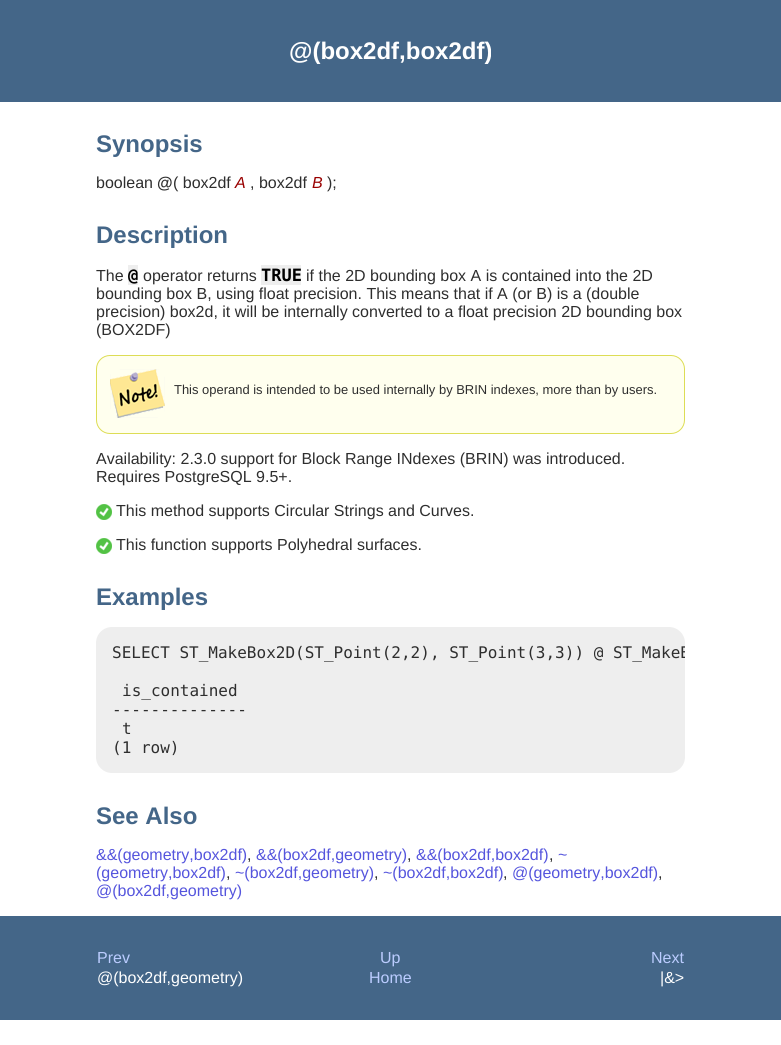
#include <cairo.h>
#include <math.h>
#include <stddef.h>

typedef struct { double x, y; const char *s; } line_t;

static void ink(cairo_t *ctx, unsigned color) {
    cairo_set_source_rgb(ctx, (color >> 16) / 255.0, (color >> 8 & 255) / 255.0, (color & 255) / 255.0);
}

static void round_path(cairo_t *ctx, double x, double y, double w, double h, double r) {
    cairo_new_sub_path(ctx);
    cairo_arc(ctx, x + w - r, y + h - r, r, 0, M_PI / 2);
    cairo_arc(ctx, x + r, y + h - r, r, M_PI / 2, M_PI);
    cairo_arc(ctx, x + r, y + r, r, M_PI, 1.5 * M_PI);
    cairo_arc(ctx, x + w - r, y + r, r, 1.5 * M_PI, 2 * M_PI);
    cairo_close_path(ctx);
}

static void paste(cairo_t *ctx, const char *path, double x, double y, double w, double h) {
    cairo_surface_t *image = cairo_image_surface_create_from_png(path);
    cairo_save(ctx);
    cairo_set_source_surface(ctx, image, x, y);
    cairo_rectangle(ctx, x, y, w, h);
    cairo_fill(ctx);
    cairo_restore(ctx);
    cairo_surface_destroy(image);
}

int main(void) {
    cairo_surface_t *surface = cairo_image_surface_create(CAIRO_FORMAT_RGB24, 781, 1045);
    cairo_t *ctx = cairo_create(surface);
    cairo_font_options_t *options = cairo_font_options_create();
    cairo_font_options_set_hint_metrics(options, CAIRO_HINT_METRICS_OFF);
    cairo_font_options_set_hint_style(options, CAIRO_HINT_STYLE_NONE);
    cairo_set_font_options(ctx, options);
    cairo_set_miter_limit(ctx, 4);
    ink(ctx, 0xFFFFFF);
    cairo_paint(ctx);
    ink(ctx, 0x446688);
    cairo_rectangle(ctx, 0, 0, 781, 102);
    cairo_fill(ctx);
    cairo_select_font_face(ctx, "Liberation Sans", CAIRO_FONT_SLANT_NORMAL, CAIRO_FONT_WEIGHT_BOLD);
    cairo_set_font_size(ctx, 24);
    ink(ctx, 0xFFFFFF);
    cairo_move_to(ctx, 289, 59);
    cairo_show_text(ctx, "@(box2df,box2df)");
    ink(ctx, 0x446688);
    cairo_move_to(ctx, 96, 152);
    cairo_show_text(ctx, "Synopsis");
    cairo_select_font_face(ctx, "Liberation Sans", CAIRO_FONT_SLANT_NORMAL, CAIRO_FONT_WEIGHT_NORMAL);
    cairo_set_font_size(ctx, 16);
    ink(ctx, 0x2E2E2E);
    cairo_move_to(ctx, 96, 188);
    cairo_show_text(ctx, "boolean");
    cairo_select_font_face(ctx, "Liberation Sans", CAIRO_FONT_SLANT_NORMAL, CAIRO_FONT_WEIGHT_BOLD);
    cairo_move_to(ctx, 157, 188);
    cairo_show_text(ctx, "@");
    cairo_select_font_face(ctx, "Liberation Sans", CAIRO_FONT_SLANT_NORMAL, CAIRO_FONT_WEIGHT_NORMAL);
    cairo_move_to(ctx, 173, 188);
    cairo_show_text(ctx, "( box2df");
    cairo_select_font_face(ctx, "Liberation Sans", CAIRO_FONT_SLANT_ITALIC, CAIRO_FONT_WEIGHT_NORMAL);
    ink(ctx, 0x990000);
    cairo_move_to(ctx, 235, 188);
    cairo_show_text(ctx, "A");
    cairo_select_font_face(ctx, "Liberation Sans", CAIRO_FONT_SLANT_NORMAL, CAIRO_FONT_WEIGHT_NORMAL);
    ink(ctx, 0x2E2E2E);
    cairo_move_to(ctx, 250, 188);
    cairo_show_text(ctx, ", box2df");
    cairo_select_font_face(ctx, "Liberation Sans", CAIRO_FONT_SLANT_ITALIC, CAIRO_FONT_WEIGHT_NORMAL);
    ink(ctx, 0x990000);
    cairo_move_to(ctx, 312, 188);
    cairo_show_text(ctx, "B");
    cairo_select_font_face(ctx, "Liberation Sans", CAIRO_FONT_SLANT_NORMAL, CAIRO_FONT_WEIGHT_NORMAL);
    ink(ctx, 0x2E2E2E);
    cairo_move_to(ctx, 327, 188);
    cairo_show_text(ctx, ");");
    cairo_select_font_face(ctx, "Liberation Sans", CAIRO_FONT_SLANT_NORMAL, CAIRO_FONT_WEIGHT_BOLD);
    cairo_set_font_size(ctx, 24);
    ink(ctx, 0x446688);
    cairo_move_to(ctx, 96, 243);
    cairo_show_text(ctx, "Description");
    cairo_select_font_face(ctx, "Liberation Sans", CAIRO_FONT_SLANT_NORMAL, CAIRO_FONT_WEIGHT_NORMAL);
    cairo_set_font_size(ctx, 16);
    ink(ctx, 0x2E2E2E);
    cairo_move_to(ctx, 96, 281);
    cairo_show_text(ctx, "The");
    ink(ctx, 0xEEEEEE);
    cairo_rectangle(ctx, 128, 265, 10, 20);
    cairo_fill(ctx);
    cairo_select_font_face(ctx, "DejaVu Sans Mono", CAIRO_FONT_SLANT_NORMAL, CAIRO_FONT_WEIGHT_BOLD);
    cairo_set_font_size(ctx, 17);
    ink(ctx, 0x000000);
    cairo_move_to(ctx, 128, 281);
    cairo_show_text(ctx, "@");
    cairo_select_font_face(ctx, "Liberation Sans", CAIRO_FONT_SLANT_NORMAL, CAIRO_FONT_WEIGHT_NORMAL);
    cairo_set_font_size(ctx, 16);
    ink(ctx, 0x2E2E2E);
    cairo_move_to(ctx, 143, 281);
    cairo_show_text(ctx, "operator returns");
    ink(ctx, 0xEEEEEE);
    cairo_rectangle(ctx, 261, 265, 40, 20);
    cairo_fill(ctx);
    cairo_select_font_face(ctx, "DejaVu Sans Mono", CAIRO_FONT_SLANT_NORMAL, CAIRO_FONT_WEIGHT_BOLD);
    cairo_set_font_size(ctx, 17);
    ink(ctx, 0x000000);
    cairo_move_to(ctx, 261, 281);
    cairo_show_text(ctx, "TRUE");
    cairo_select_font_face(ctx, "Liberation Sans", CAIRO_FONT_SLANT_NORMAL, CAIRO_FONT_WEIGHT_NORMAL);
    cairo_set_font_size(ctx, 16);
    ink(ctx, 0x2E2E2E);
    {
        static const line_t items[] = {
            {306, 281, "if the 2D bounding box A is contained into the 2D"},
            {96, 299, "bounding box B, using float precision. This means that if A (or B) is a (double"},
            {96, 317, "precision) box2d, it will be internally converted to a float precision 2D bounding box"},
            {96, 335, "(BOX2DF)"},
        };
        for (size_t i = 0; i < sizeof items / sizeof *items; i++) {
            cairo_move_to(ctx, items[i].x, items[i].y);
            cairo_show_text(ctx, items[i].s);
        }
    }
    ink(ctx, 0xFFFFEE);
    round_path(ctx, 96.5, 355.5, 588, 78, 13.5);
    cairo_fill_preserve(ctx);
    ink(ctx, 0xDDDD55);
    cairo_set_line_width(ctx, 1);
    cairo_stroke(ctx);
    paste(ctx, "media/1.png", 110, 369, 55, 49);
    cairo_set_font_size(ctx, 12.95);
    ink(ctx, 0x2E2E2E);
    cairo_move_to(ctx, 174, 394);
    cairo_show_text(ctx, "This operand is intended to be used internally by BRIN indexes, more than by users.");
    cairo_set_font_size(ctx, 16);
    cairo_move_to(ctx, 96, 464);
    cairo_show_text(ctx, "Availability: 2.3.0 support for Block Range INdexes (BRIN) was introduced.");
    cairo_move_to(ctx, 96, 482);
    cairo_show_text(ctx, "Requires PostgreSQL 9.5+.");
    paste(ctx, "media/2.png", 96, 504, 16, 16);
    cairo_move_to(ctx, 116, 516);
    cairo_show_text(ctx, "This method supports Circular Strings and Curves.");
    paste(ctx, "media/2.png", 96, 538, 16, 16);
    cairo_move_to(ctx, 116, 550);
    cairo_show_text(ctx, "This function supports Polyhedral surfaces.");
    cairo_select_font_face(ctx, "Liberation Sans", CAIRO_FONT_SLANT_NORMAL, CAIRO_FONT_WEIGHT_BOLD);
    cairo_set_font_size(ctx, 24);
    ink(ctx, 0x446688);
    cairo_move_to(ctx, 96, 605);
    cairo_show_text(ctx, "Examples");
    ink(ctx, 0xEEEEEE);
    round_path(ctx, 96, 627, 589, 146, 16);
    cairo_fill(ctx);
    cairo_save(ctx);
    round_path(ctx, 96, 627, 589, 146, 16);
    cairo_clip(ctx);
    cairo_select_font_face(ctx, "DejaVu Sans Mono", CAIRO_FONT_SLANT_NORMAL, CAIRO_FONT_WEIGHT_NORMAL);
    cairo_set_font_size(ctx, 16);
    ink(ctx, 0x2E2E2E);
    cairo_move_to(ctx, 112, 658);
    cairo_show_text(ctx, "SELECT ST_MakeBox2D(ST_Point(2,2), ST_Point(3,3)) @ ST_MakeB");
    cairo_restore(ctx);
    cairo_select_font_face(ctx, "DejaVu Sans Mono", CAIRO_FONT_SLANT_NORMAL, CAIRO_FONT_WEIGHT_NORMAL);
    cairo_set_font_size(ctx, 16);
    ink(ctx, 0x2E2E2E);
    {
        static const line_t items[] = {
            {122, 696, "is_contained"},
            {112, 715, "--------------"},
            {122, 734, "t"},
            {112, 753, "(1 row)"},
        };
        for (size_t i = 0; i < sizeof items / sizeof *items; i++) {
            cairo_move_to(ctx, items[i].x, items[i].y);
            cairo_show_text(ctx, items[i].s);
        }
    }
    cairo_select_font_face(ctx, "Liberation Sans", CAIRO_FONT_SLANT_NORMAL, CAIRO_FONT_WEIGHT_BOLD);
    cairo_set_font_size(ctx, 24);
    ink(ctx, 0x446688);
    cairo_move_to(ctx, 96, 824);
    cairo_show_text(ctx, "See Also");
    cairo_select_font_face(ctx, "Liberation Sans", CAIRO_FONT_SLANT_NORMAL, CAIRO_FONT_WEIGHT_NORMAL);
    cairo_set_font_size(ctx, 16);
    ink(ctx, 0x5555DD);
    {
        static const line_t items[] = {
            {96, 860, "&&(geometry,box2df)"},
            {256, 860, "&&(box2df,geometry)"},
            {416, 860, "&&(box2df,box2df)"},
            {558, 860, "~"},
        };
        for (size_t i = 0; i < sizeof items / sizeof *items; i++) {
            cairo_move_to(ctx, items[i].x, items[i].y);
            cairo_show_text(ctx, items[i].s);
        }
    }
    ink(ctx, 0x2E2E2E);
    {
        static const line_t items[] = {
            {247, 860, ","},
            {407, 860, ","},
            {549, 860, ","},
        };
        for (size_t i = 0; i < sizeof items / sizeof *items; i++) {
            cairo_move_to(ctx, items[i].x, items[i].y);
            cairo_show_text(ctx, items[i].s);
        }
    }
    ink(ctx, 0x5555DD);
    cairo_move_to(ctx, 96, 878);
    cairo_show_text(ctx, "(geometry,box2df)");
    ink(ctx, 0x2E2E2E);
    cairo_move_to(ctx, 226, 878);
    cairo_show_text(ctx, ",");
    ink(ctx, 0x5555DD);
    cairo_move_to(ctx, 235, 878);
    cairo_show_text(ctx, "~(box2df,geometry)");
    ink(ctx, 0x2E2E2E);
    cairo_move_to(ctx, 374, 878);
    cairo_show_text(ctx, ",");
    ink(ctx, 0x5555DD);
    cairo_move_to(ctx, 383, 878);
    cairo_show_text(ctx, "~(box2df,box2df)");
    ink(ctx, 0x2E2E2E);
    cairo_move_to(ctx, 503, 878);
    cairo_show_text(ctx, ",");
    ink(ctx, 0x5555DD);
    cairo_move_to(ctx, 512, 878);
    cairo_show_text(ctx, "@(geometry,box2df)");
    ink(ctx, 0x2E2E2E);
    cairo_move_to(ctx, 658, 878);
    cairo_show_text(ctx, ",");
    ink(ctx, 0x5555DD);
    cairo_move_to(ctx, 96, 896);
    cairo_show_text(ctx, "@(box2df,geometry)");
    ink(ctx, 0x446688);
    cairo_rectangle(ctx, 0, 916, 781, 104);
    cairo_fill(ctx);
    ink(ctx, 0xBBCCFF);
    {
        static const line_t items[] = {
            {97, 963, "Prev"},
            {380, 963, "Up"},
            {651, 963, "Next"},
        };
        for (size_t i = 0; i < sizeof items / sizeof *items; i++) {
            cairo_move_to(ctx, items[i].x, items[i].y);
            cairo_show_text(ctx, items[i].s);
        }
    }
    ink(ctx, 0xFFFFFF);
    cairo_move_to(ctx, 97, 983);
    cairo_show_text(ctx, "@(box2df,geometry)");
    ink(ctx, 0xBBCCFF);
    cairo_move_to(ctx, 369, 983);
    cairo_show_text(ctx, "Home");
    ink(ctx, 0xFFFFFF);
    cairo_move_to(ctx, 660, 983);
    cairo_show_text(ctx, "|&>");
    cairo_surface_write_to_png(surface, "image.png");
    cairo_font_options_destroy(options);
    cairo_destroy(ctx);
    cairo_surface_destroy(surface);
    return 0;
}
